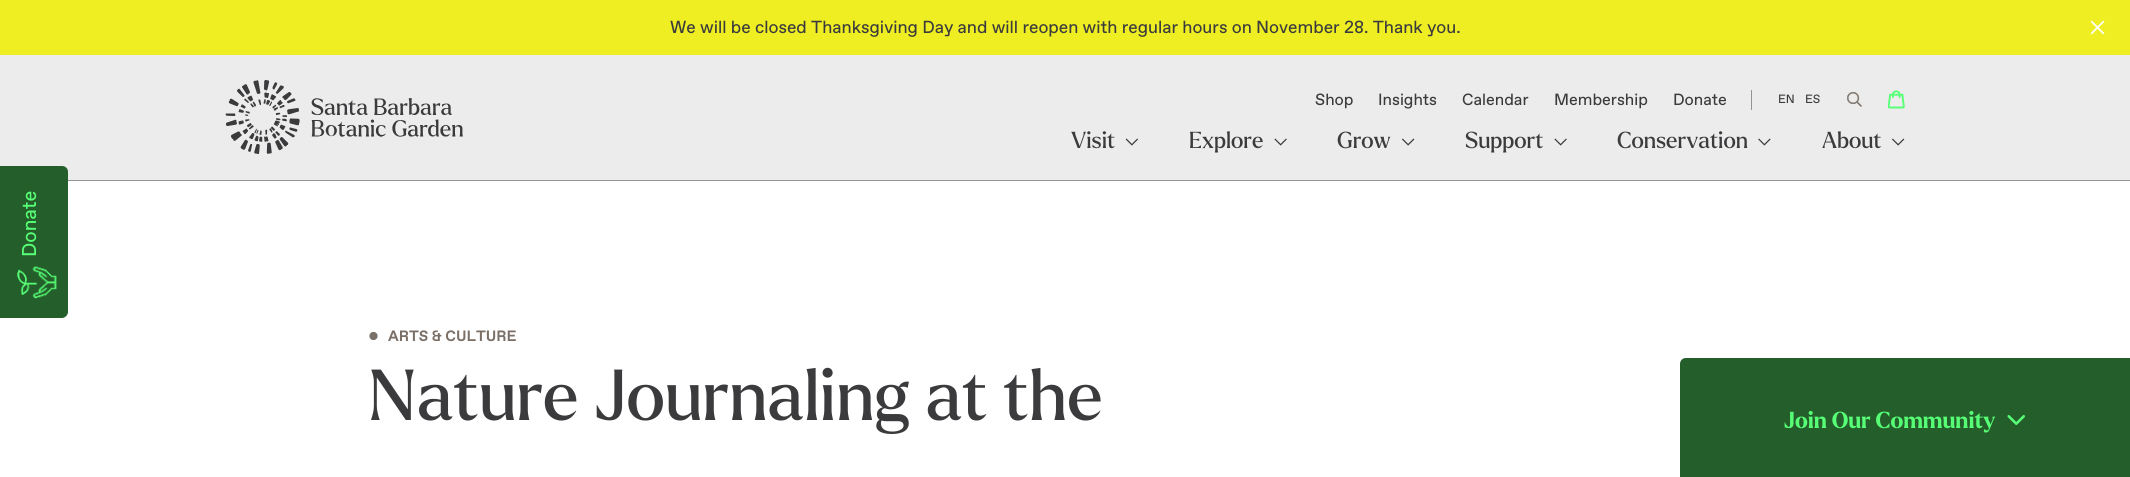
#include <cairo.h>
#include <math.h>
#include <stddef.h>

typedef struct { double x, y; const char *s; } line_t;

static void ink(cairo_t *ctx, unsigned color) {
    cairo_set_source_rgb(ctx, (color >> 16) / 255.0, (color >> 8 & 255) / 255.0, (color & 255) / 255.0);
}

static void round_path(cairo_t *ctx, double x, double y, double w, double h, double r) {
    cairo_new_sub_path(ctx);
    cairo_arc(ctx, x + w - r, y + h - r, r, 0, M_PI / 2);
    cairo_arc(ctx, x + r, y + h - r, r, M_PI / 2, M_PI);
    cairo_arc(ctx, x + r, y + r, r, M_PI, 1.5 * M_PI);
    cairo_arc(ctx, x + w - r, y + r, r, 1.5 * M_PI, 2 * M_PI);
    cairo_close_path(ctx);
}

static void blur_box(cairo_t *ctx, double x, double y, double w, double h, double r, double blur, double alpha) {
    cairo_push_group_with_content(ctx, CAIRO_CONTENT_ALPHA);
    cairo_set_operator(ctx, CAIRO_OPERATOR_SOURCE);
    for (int i = 15; i >= -15 && fmin(w, h) + blur * i / 3 > 0; i -= 2) {
        double e = blur * i / 6;
        cairo_set_source_rgba(ctx, 0, 0, 0, alpha * erfc((i - 1) / 8.5) / 2);
        round_path(ctx, x - e, y - e, w + 2 * e, h + 2 * e, fmax(0, fmin(r + e + blur * .6, fmin(w, h) / 2 + e)));
        cairo_fill(ctx);
    }
    cairo_pattern_t *soft = cairo_pop_group(ctx);
    cairo_mask(ctx, soft);
    cairo_pattern_destroy(soft);
}

static void paste(cairo_t *ctx, const char *path, double x, double y, double w, double h) {
    cairo_surface_t *image = cairo_image_surface_create_from_png(path);
    cairo_save(ctx);
    cairo_set_source_surface(ctx, image, x, y);
    cairo_rectangle(ctx, x, y, w, h);
    cairo_fill(ctx);
    cairo_restore(ctx);
    cairo_surface_destroy(image);
}

int main(void) {
    cairo_surface_t *surface = cairo_image_surface_create(CAIRO_FORMAT_RGB24, 2130, 477);
    cairo_t *ctx = cairo_create(surface);
    cairo_font_options_t *options = cairo_font_options_create();
    cairo_font_options_set_hint_metrics(options, CAIRO_HINT_METRICS_OFF);
    cairo_font_options_set_hint_style(options, CAIRO_HINT_STYLE_NONE);
    cairo_set_font_options(ctx, options);
    cairo_set_miter_limit(ctx, 4);
    ink(ctx, 0xFFFFFF);
    cairo_paint(ctx);
    cairo_save(ctx);
    cairo_new_path(ctx);
    cairo_move_to(ctx, -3, 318);
    cairo_line_to(ctx, -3, 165.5);
    cairo_line_to(ctx, 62, 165.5);
    cairo_curve_to(ctx, 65.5, 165.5, 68, 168.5, 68, 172);
    cairo_line_to(ctx, 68, 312);
    cairo_curve_to(ctx, 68, 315.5, 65.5, 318, 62, 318);
    cairo_close_path(ctx);
    cairo_clip(ctx);
    ink(ctx, 0x000000);
    blur_box(ctx, -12, 208, 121, 71, 6, 2, 0.5);
    cairo_restore(ctx);
    ink(ctx, 0xECECEC);
    cairo_rectangle(ctx, 0, 55, 2130, 125);
    cairo_fill(ctx);
    ink(ctx, 0x245E2B);
    cairo_new_path(ctx);
    cairo_move_to(ctx, -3, 318);
    cairo_line_to(ctx, -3, 166);
    cairo_line_to(ctx, 62, 166);
    cairo_curve_to(ctx, 65, 166, 68, 168, 68, 172);
    cairo_line_to(ctx, 68, 312);
    cairo_curve_to(ctx, 68, 315, 65, 318, 62, 318);
    cairo_close_path(ctx);
    cairo_fill(ctx);
    paste(ctx, "media/1.png", 32, 266, 25, 33);
    cairo_select_font_face(ctx, "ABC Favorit", CAIRO_FONT_SLANT_NORMAL, CAIRO_FONT_WEIGHT_NORMAL);
    cairo_set_font_size(ctx, 20);
    ink(ctx, 0x57FF76);
    cairo_save(ctx);
    cairo_translate(ctx, 36, 257);
    cairo_rotate(ctx, -90 * M_PI / 180);
    cairo_move_to(ctx, 0, 0);
    cairo_show_text(ctx, "Donate");
    cairo_restore(ctx);
    paste(ctx, "media/2.png", 17, 269, 21, 26);
    ink(ctx, 0x949495);
    cairo_rectangle(ctx, 68, 180, 2062, 1);
    cairo_fill(ctx);
    ink(ctx, 0xEEEE22);
    cairo_rectangle(ctx, 0, 0, 2130, 55);
    cairo_fill(ctx);
    cairo_set_font_size(ctx, 17.5);
    ink(ctx, 0x3B3B3D);
    cairo_move_to(ctx, 670, 33);
    cairo_show_text(ctx, "We will be closed Thanksgiving Day and will reopen with regular hours on November 28. Thank you.");
    paste(ctx, "media/3.png", 2090, 20, 15, 15);
    paste(ctx, "media/4.png", 225, 80, 238, 74);
    cairo_set_font_size(ctx, 16.25);
    {
        static const line_t items[] = {
            {1315, 105, "Shop"},
            {1378, 105, "Insights"},
            {1462, 105, "Calendar"},
            {1554, 105, "Membership"},
            {1673, 105, "Donate"},
        };
        for (size_t i = 0; i < sizeof items / sizeof *items; i++) {
            cairo_move_to(ctx, items[i].x, items[i].y);
            cairo_show_text(ctx, items[i].s);
        }
    }
    ink(ctx, 0x949495);
    cairo_rectangle(ctx, 1751, 90, 1, 20);
    cairo_fill(ctx);
    cairo_set_font_size(ctx, 12);
    ink(ctx, 0x3B3B3D);
    cairo_move_to(ctx, 1778, 103);
    cairo_show_text(ctx, "EN");
    cairo_move_to(ctx, 1805, 103);
    cairo_show_text(ctx, "ES");
    paste(ctx, "media/5.png", 1847, 92, 15, 15);
    paste(ctx, "media/6.png", 1888, 90, 17, 19);
    cairo_select_font_face(ctx, "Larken", CAIRO_FONT_SLANT_NORMAL, CAIRO_FONT_WEIGHT_NORMAL);
    cairo_set_font_size(ctx, 22.5);
    cairo_move_to(ctx, 1071, 148);
    cairo_show_text(ctx, "Visit");
    paste(ctx, "media/7.png", 1125, 138, 13, 8);
    cairo_move_to(ctx, 1189, 148);
    cairo_show_text(ctx, "Explore");
    paste(ctx, "media/8.png", 1274, 138, 13, 8);
    cairo_move_to(ctx, 1337, 148);
    cairo_show_text(ctx, "Grow");
    paste(ctx, "media/9.png", 1402, 138, 13, 8);
    cairo_move_to(ctx, 1465, 148);
    cairo_show_text(ctx, "Support");
    paste(ctx, "media/8.png", 1554, 138, 13, 8);
    cairo_move_to(ctx, 1617, 148);
    cairo_show_text(ctx, "Conservation");
    paste(ctx, "media/10.png", 1758, 138, 13, 8);
    cairo_move_to(ctx, 1822, 148);
    cairo_show_text(ctx, "About");
    paste(ctx, "media/9.png", 1892, 138, 13, 8);
    cairo_select_font_face(ctx, "ABC Favorit", CAIRO_FONT_SLANT_NORMAL, CAIRO_FONT_WEIGHT_BOLD);
    cairo_set_font_size(ctx, 20);
    ink(ctx, 0x7A7067);
    cairo_move_to(ctx, 368, 343);
    cairo_show_text(ctx, "•");
    cairo_set_font_size(ctx, 15);
    cairo_move_to(ctx, 388, 341);
    cairo_show_text(ctx, "ARTS & CULTURE");
    cairo_select_font_face(ctx, "Larken", CAIRO_FONT_SLANT_NORMAL, CAIRO_FONT_WEIGHT_NORMAL);
    cairo_set_font_size(ctx, 70);
    ink(ctx, 0x3B3B3D);
    cairo_move_to(ctx, 368, 420);
    cairo_show_text(ctx, "Nature Journaling at the");
    ink(ctx, 0x245E2B);
    cairo_new_path(ctx);
    cairo_move_to(ctx, 1686, 358);
    cairo_line_to(ctx, 2130, 358);
    cairo_line_to(ctx, 2130, 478);
    cairo_line_to(ctx, 1680, 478);
    cairo_line_to(ctx, 1680, 364);
    cairo_curve_to(ctx, 1680, 360.5, 1682.5, 358, 1686, 358);
    cairo_close_path(ctx);
    cairo_fill(ctx);
    cairo_select_font_face(ctx, "Larken", CAIRO_FONT_SLANT_NORMAL, CAIRO_FONT_WEIGHT_BOLD);
    cairo_set_font_size(ctx, 22.5);
    ink(ctx, 0x57FF76);
    cairo_move_to(ctx, 1784, 428);
    cairo_show_text(ctx, "Join Our Community");
    paste(ctx, "media/11.png", 2007, 415, 18, 10);
    cairo_surface_write_to_png(surface, "image.png");
    cairo_font_options_destroy(options);
    cairo_destroy(ctx);
    cairo_surface_destroy(surface);
    return 0;
}
